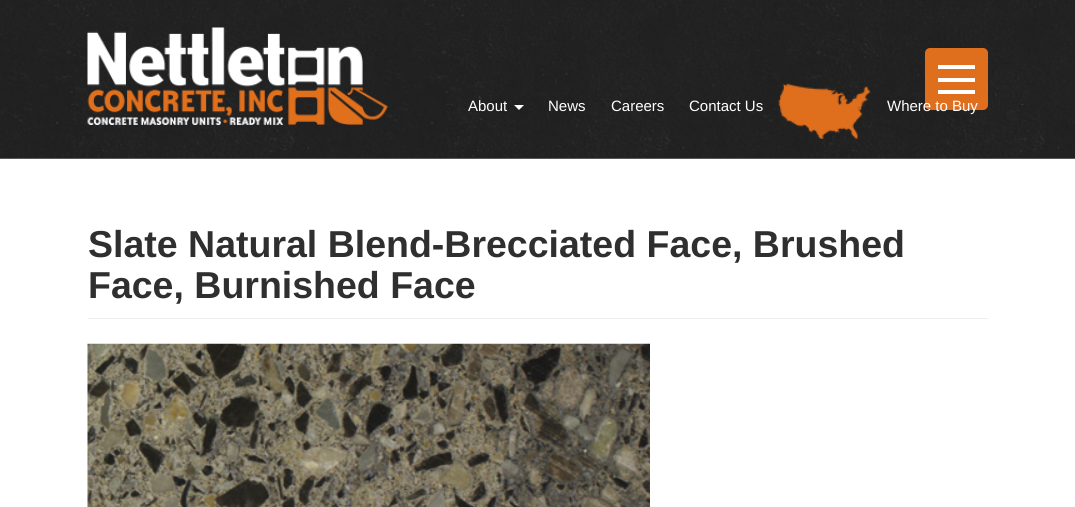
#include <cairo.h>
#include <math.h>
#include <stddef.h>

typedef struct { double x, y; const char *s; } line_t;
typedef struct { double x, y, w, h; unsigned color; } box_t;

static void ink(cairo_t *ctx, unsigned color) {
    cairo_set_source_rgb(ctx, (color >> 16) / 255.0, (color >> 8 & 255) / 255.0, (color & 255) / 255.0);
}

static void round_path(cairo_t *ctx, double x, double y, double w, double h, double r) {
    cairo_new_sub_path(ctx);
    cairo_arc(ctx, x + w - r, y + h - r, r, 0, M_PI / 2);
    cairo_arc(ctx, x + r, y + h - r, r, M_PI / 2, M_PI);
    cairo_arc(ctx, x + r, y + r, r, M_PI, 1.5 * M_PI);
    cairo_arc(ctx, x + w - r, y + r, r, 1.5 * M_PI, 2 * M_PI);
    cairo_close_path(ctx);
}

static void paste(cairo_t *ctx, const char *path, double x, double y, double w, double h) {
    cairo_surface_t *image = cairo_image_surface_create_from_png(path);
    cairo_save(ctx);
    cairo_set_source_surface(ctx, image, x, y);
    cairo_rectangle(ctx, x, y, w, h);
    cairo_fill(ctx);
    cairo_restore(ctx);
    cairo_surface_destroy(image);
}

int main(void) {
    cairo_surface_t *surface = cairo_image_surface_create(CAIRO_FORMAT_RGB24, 1075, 507);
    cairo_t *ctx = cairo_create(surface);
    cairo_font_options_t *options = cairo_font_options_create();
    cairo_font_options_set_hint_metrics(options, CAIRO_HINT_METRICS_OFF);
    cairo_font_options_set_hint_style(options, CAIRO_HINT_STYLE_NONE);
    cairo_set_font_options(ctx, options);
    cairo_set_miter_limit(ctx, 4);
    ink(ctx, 0xFFFFFF);
    cairo_paint(ctx);
    paste(ctx, "media/1.png", 0, 0, 1075, 159);
    paste(ctx, "media/2.png", 87, 27, 301, 98);
    ink(ctx, 0xE06F1D);
    round_path(ctx, 925, 48, 63, 62, 5);
    cairo_fill(ctx);
    {
        static const box_t items[] = {
            {938, 65, 37, 4, 0xFFFFFF},
            {938, 78, 37, 4, 0xFFFFFF},
            {938, 90, 37, 4, 0xFFFFFF},
        };
        for (size_t i = 0; i < sizeof items / sizeof *items; i++) {
            ink(ctx, items[i].color);
            cairo_rectangle(ctx, items[i].x, items[i].y, items[i].w, items[i].h);
            cairo_fill(ctx);
        }
    }
    cairo_select_font_face(ctx, "Liberation Sans", CAIRO_FONT_SLANT_NORMAL, CAIRO_FONT_WEIGHT_NORMAL);
    cairo_set_font_size(ctx, 15);
    cairo_move_to(ctx, 468, 111);
    cairo_show_text(ctx, "About");
    cairo_new_path(ctx);
    cairo_move_to(ctx, 514, 105);
    cairo_line_to(ctx, 524, 105);
    cairo_line_to(ctx, 519, 110);
    cairo_close_path(ctx);
    cairo_fill(ctx);
    {
        static const line_t items[] = {
            {548, 111, "News"},
            {611, 111, "Careers"},
            {689, 111, "Contact Us"},
        };
        for (size_t i = 0; i < sizeof items / sizeof *items; i++) {
            cairo_move_to(ctx, items[i].x, items[i].y);
            cairo_show_text(ctx, items[i].s);
        }
    }
    paste(ctx, "media/3.png", 778, 83, 93, 56);
    cairo_move_to(ctx, 887, 111);
    cairo_show_text(ctx, "Where to Buy");
    ink(ctx, 0xEEEEEE);
    cairo_rectangle(ctx, 88, 318, 900, 1);
    cairo_fill(ctx);
    cairo_select_font_face(ctx, "Liberation Sans", CAIRO_FONT_SLANT_NORMAL, CAIRO_FONT_WEIGHT_BOLD);
    cairo_set_font_size(ctx, 37.5);
    ink(ctx, 0x2F2F2F);
    cairo_move_to(ctx, 88, 257);
    cairo_show_text(ctx, "Slate Natural Blend-Brecciated Face, Brushed");
    cairo_move_to(ctx, 88, 298);
    cairo_show_text(ctx, "Face, Burnished Face");
    paste(ctx, "media/4.png", 87, 343, 563, 164);
    cairo_surface_write_to_png(surface, "image.png");
    cairo_font_options_destroy(options);
    cairo_destroy(ctx);
    cairo_surface_destroy(surface);
    return 0;
}
